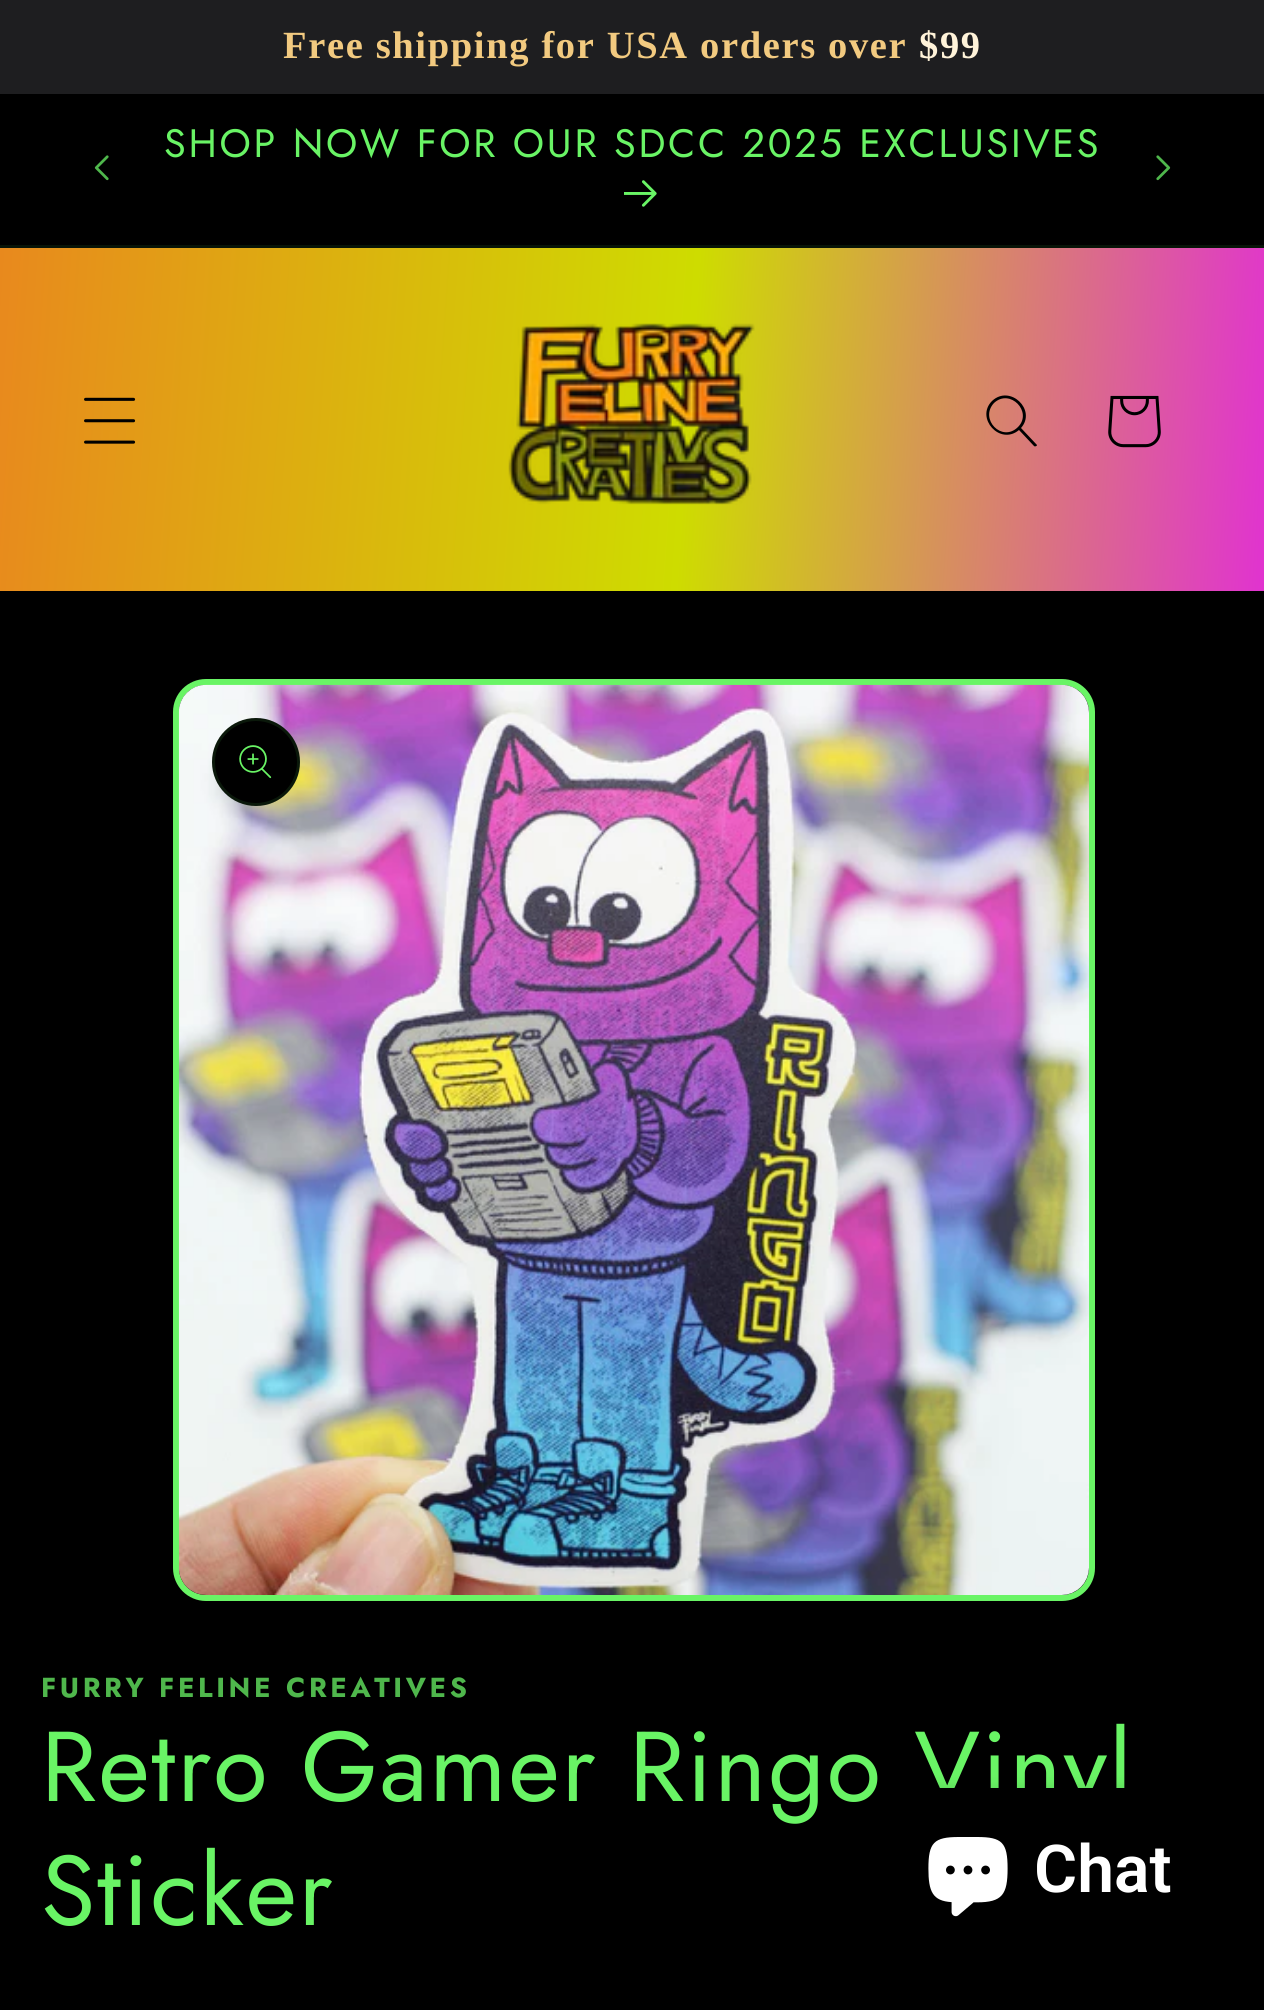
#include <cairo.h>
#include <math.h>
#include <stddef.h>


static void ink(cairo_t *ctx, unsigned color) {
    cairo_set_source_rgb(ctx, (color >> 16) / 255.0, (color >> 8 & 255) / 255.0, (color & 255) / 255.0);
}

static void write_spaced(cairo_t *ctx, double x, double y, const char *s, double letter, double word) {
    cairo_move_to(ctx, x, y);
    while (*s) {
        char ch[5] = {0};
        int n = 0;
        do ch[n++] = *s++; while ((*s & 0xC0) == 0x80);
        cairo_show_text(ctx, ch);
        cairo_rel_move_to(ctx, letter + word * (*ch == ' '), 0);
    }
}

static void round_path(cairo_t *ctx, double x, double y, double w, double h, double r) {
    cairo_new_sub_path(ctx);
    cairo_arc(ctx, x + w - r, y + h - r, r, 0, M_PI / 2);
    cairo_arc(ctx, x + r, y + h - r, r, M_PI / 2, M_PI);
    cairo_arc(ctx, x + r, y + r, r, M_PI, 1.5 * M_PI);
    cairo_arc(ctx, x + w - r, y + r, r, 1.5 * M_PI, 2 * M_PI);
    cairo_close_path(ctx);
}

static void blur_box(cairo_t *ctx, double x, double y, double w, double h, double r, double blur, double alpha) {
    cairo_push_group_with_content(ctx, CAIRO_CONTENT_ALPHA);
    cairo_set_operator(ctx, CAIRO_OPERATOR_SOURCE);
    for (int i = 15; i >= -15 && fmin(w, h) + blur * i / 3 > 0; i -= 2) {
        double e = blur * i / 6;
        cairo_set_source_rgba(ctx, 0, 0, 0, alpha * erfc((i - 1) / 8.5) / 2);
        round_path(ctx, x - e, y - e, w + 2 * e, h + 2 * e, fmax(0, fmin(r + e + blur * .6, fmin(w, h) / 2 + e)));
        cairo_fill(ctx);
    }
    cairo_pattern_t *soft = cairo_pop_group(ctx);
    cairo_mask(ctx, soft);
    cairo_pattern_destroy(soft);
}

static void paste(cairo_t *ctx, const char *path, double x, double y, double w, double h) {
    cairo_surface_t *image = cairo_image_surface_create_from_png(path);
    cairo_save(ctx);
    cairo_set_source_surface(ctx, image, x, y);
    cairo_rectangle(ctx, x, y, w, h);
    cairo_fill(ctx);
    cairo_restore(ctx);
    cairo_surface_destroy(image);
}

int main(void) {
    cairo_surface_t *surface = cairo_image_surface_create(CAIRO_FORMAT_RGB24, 1264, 2010);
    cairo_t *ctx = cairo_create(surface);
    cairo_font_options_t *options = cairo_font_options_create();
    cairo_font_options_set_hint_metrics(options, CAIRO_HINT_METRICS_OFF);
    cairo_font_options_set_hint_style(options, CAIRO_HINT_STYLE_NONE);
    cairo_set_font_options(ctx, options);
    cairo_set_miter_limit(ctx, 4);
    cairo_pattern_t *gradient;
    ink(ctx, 0x000000);
    cairo_paint(ctx);
    ink(ctx, 0x1E1E20);
    cairo_rectangle(ctx, 0, 0, 1264, 94);
    cairo_fill(ctx);
    cairo_select_font_face(ctx, "Liberation Serif", CAIRO_FONT_SLANT_NORMAL, CAIRO_FONT_WEIGHT_BOLD);
    cairo_set_font_size(ctx, 38.5);
    ink(ctx, 0xF2CA80);
    write_spaced(ctx, 283, 58, "Free shipping for USA orders over", 1.65, 0);
    ink(ctx, 0xFFF3D9);
    write_spaced(ctx, 919, 58, "$99", 1.65, 0);
    ink(ctx, 0x081408);
    cairo_rectangle(ctx, 0, 245, 1264, 3);
    cairo_fill(ctx);
    cairo_select_font_face(ctx, "Jost", CAIRO_FONT_SLANT_NORMAL, CAIRO_FONT_WEIGHT_NORMAL);
    cairo_set_font_size(ctx, 39.6);
    ink(ctx, 0x69F465);
    write_spaced(ctx, 164, 157, "SHOP NOW FOR OUR SDCC 2025 EXCLUSIVES", 2.75, 0);
    paste(ctx, "media/1.png", 624, 180, 33, 27);
    paste(ctx, "media/2.png", 94, 155, 15, 26);
    paste(ctx, "media/3.png", 1156, 155, 15, 26);
    gradient = cairo_pattern_create_linear(-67, 956, 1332, 1054);
    cairo_pattern_add_color_stop_rgba(gradient, 0, 0.914, 0.529, 0.118, 1);
    cairo_pattern_add_color_stop_rgba(gradient, 0.51, 0.808, 0.863, 0, 1);
    cairo_pattern_add_color_stop_rgba(gradient, 0.98, 0.89, 0.118, 0.914, 1);
    cairo_set_source(ctx, gradient);
    cairo_pattern_destroy(gradient);
    cairo_rectangle(ctx, 0, 248, 1264, 343);
    cairo_fill(ctx);
    paste(ctx, "media/4.png", 84, 397, 52, 47);
    paste(ctx, "media/5.png", 508, 323, 247, 182);
    ink(ctx, 0x000000);
    cairo_set_fill_rule(ctx, CAIRO_FILL_RULE_EVEN_ODD);
    cairo_new_path(ctx);
    cairo_move_to(ctx, 1018, 427);
    cairo_curve_to(ctx, 1002, 443, 979, 419, 994, 403);
    cairo_curve_to(ctx, 1010, 388, 1033, 412, 1018, 427);
    cairo_move_to(ctx, 1019, 430);
    cairo_curve_to(ctx, 1000, 446, 975, 418, 992, 401);
    cairo_curve_to(ctx, 1010, 384, 1037, 410, 1021, 428);
    cairo_line_to(ctx, 1037, 445);
    cairo_curve_to(ctx, 1037, 446, 1035, 447, 1034, 446);
    cairo_close_path(ctx);
    cairo_fill(ctx);
    paste(ctx, "media/6.png", 1108, 395, 53, 53);
    round_path(ctx, 176, 682, 916, 916, 30);
    ink(ctx, 0x69F465);
    cairo_set_line_width(ctx, 6);
    cairo_stroke(ctx);
    paste(ctx, "media/7.png", 178, 684, 911, 911);
    ink(ctx, 0x000000);
    cairo_arc(ctx, 256, 762, 44, 0, 2 * M_PI);
    cairo_fill(ctx);
    cairo_arc(ctx, 256, 762, 42.5, 0, 2 * M_PI);
    cairo_set_source_rgba(ctx, 0.412, 0.957, 0.396, 0.1);
    cairo_set_line_width(ctx, 3);
    cairo_stroke(ctx);
    paste(ctx, "media/8.png", 239, 745, 33, 34);
    cairo_select_font_face(ctx, "Jost", CAIRO_FONT_SLANT_NORMAL, CAIRO_FONT_WEIGHT_BOLD);
    cairo_set_font_size(ctx, 27.5);
    ink(ctx, 0x4FB74C);
    write_spaced(ctx, 41, 1697, "FURRY FELINE CREATIVES", 3.6, 0);
    cairo_select_font_face(ctx, "Jost", CAIRO_FONT_SLANT_NORMAL, CAIRO_FONT_WEIGHT_NORMAL);
    cairo_set_font_size(ctx, 99);
    ink(ctx, 0x69F465);
    write_spaced(ctx, 41, 1801, "Retro Gamer Ringo Vinyl", 2, 0);
    write_spaced(ctx, 41, 1925, "Sticker", 2, 0);
    ink(ctx, 0x000000);
    blur_box(ctx, 894, 1788, 311, 165, 44, 7, 0.15);
    ink(ctx, 0x000000);
    round_path(ctx, 894, 1788, 311, 165, 44);
    cairo_fill(ctx);
    paste(ctx, "media/9.png", 928, 1837, 80, 80);
    cairo_select_font_face(ctx, "Roboto SemiBold", CAIRO_FONT_SLANT_NORMAL, CAIRO_FONT_WEIGHT_NORMAL);
    cairo_set_font_size(ctx, 66);
    ink(ctx, 0xFFFFFF);
    cairo_move_to(ctx, 1034, 1892);
    cairo_show_text(ctx, "Chat");
    cairo_surface_write_to_png(surface, "image.png");
    cairo_font_options_destroy(options);
    cairo_destroy(ctx);
    cairo_surface_destroy(surface);
    return 0;
}
